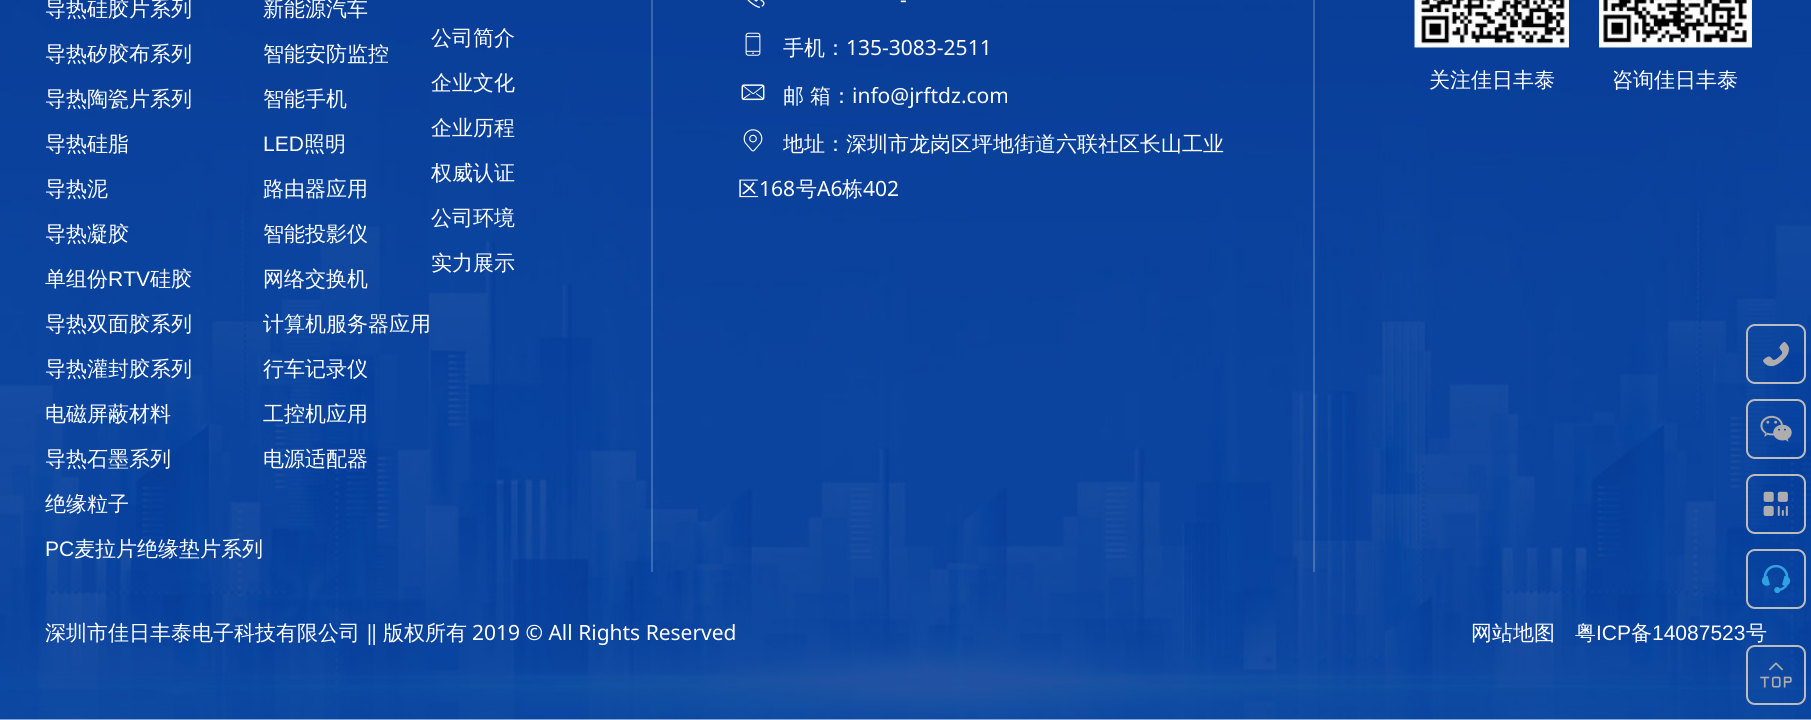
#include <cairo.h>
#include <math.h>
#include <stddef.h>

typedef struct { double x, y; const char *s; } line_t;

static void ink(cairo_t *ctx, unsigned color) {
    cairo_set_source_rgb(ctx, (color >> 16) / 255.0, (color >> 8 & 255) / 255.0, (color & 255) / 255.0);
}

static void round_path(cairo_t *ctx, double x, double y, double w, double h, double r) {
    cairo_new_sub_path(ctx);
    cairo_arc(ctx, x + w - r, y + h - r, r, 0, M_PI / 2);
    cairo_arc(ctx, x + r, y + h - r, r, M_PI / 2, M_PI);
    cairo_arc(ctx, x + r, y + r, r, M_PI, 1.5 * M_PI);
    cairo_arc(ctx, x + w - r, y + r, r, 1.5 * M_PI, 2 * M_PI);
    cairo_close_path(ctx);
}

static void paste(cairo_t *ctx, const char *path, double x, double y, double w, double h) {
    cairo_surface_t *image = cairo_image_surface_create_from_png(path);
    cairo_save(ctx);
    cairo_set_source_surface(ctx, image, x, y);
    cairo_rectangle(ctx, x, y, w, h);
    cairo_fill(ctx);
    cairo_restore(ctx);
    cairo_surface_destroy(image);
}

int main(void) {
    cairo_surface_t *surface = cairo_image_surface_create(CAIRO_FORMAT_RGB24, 1811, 720);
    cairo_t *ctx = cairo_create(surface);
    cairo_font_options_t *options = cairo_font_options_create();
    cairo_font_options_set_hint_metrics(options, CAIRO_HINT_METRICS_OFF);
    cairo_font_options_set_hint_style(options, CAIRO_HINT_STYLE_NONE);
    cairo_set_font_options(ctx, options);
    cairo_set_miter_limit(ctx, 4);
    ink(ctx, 0xFFFFFF);
    cairo_paint(ctx);
    paste(ctx, "media/1.png", 0, 0, 1811, 720);
    cairo_select_font_face(ctx, "WenQuanYi Zen Hei Medium", CAIRO_FONT_SLANT_NORMAL, CAIRO_FONT_WEIGHT_NORMAL);
    cairo_set_font_size(ctx, 21);
    ink(ctx, 0xFFFFFF);
    {
        static const line_t items[] = {
            {45, 16, "导热硅胶片系列"},
            {45, 61, "导热矽胶布系列"},
            {45, 106, "导热陶瓷片系列"},
            {45, 151, "导热硅脂"},
            {45, 196, "导热泥"},
            {45, 241, "导热凝胶"},
            {45, 286, "单组份"},
        };
        for (size_t i = 0; i < sizeof items / sizeof *items; i++) {
            cairo_move_to(ctx, items[i].x, items[i].y);
            cairo_show_text(ctx, items[i].s);
        }
    }
    cairo_select_font_face(ctx, "Liberation Sans", CAIRO_FONT_SLANT_NORMAL, CAIRO_FONT_WEIGHT_NORMAL);
    cairo_move_to(ctx, 108, 286);
    cairo_show_text(ctx, "RTV");
    cairo_select_font_face(ctx, "WenQuanYi Zen Hei Medium", CAIRO_FONT_SLANT_NORMAL, CAIRO_FONT_WEIGHT_NORMAL);
    {
        static const line_t items[] = {
            {150, 286, "硅胶"},
            {45, 331, "导热双面胶系列"},
            {45, 376, "导热灌封胶系列"},
            {45, 421, "电磁屏蔽材料"},
            {45, 466, "导热石墨系列"},
            {45, 511, "绝缘粒子"},
        };
        for (size_t i = 0; i < sizeof items / sizeof *items; i++) {
            cairo_move_to(ctx, items[i].x, items[i].y);
            cairo_show_text(ctx, items[i].s);
        }
    }
    cairo_select_font_face(ctx, "Liberation Sans", CAIRO_FONT_SLANT_NORMAL, CAIRO_FONT_WEIGHT_NORMAL);
    cairo_move_to(ctx, 45, 556);
    cairo_show_text(ctx, "PC");
    cairo_select_font_face(ctx, "WenQuanYi Zen Hei Medium", CAIRO_FONT_SLANT_NORMAL, CAIRO_FONT_WEIGHT_NORMAL);
    {
        static const line_t items[] = {
            {74, 556, "麦拉片绝缘垫片系列"},
            {263, 16, "新能源汽车"},
            {263, 61, "智能安防监控"},
            {263, 106, "智能手机"},
        };
        for (size_t i = 0; i < sizeof items / sizeof *items; i++) {
            cairo_move_to(ctx, items[i].x, items[i].y);
            cairo_show_text(ctx, items[i].s);
        }
    }
    cairo_select_font_face(ctx, "Liberation Sans", CAIRO_FONT_SLANT_NORMAL, CAIRO_FONT_WEIGHT_NORMAL);
    cairo_move_to(ctx, 263, 151);
    cairo_show_text(ctx, "LED");
    cairo_select_font_face(ctx, "WenQuanYi Zen Hei Medium", CAIRO_FONT_SLANT_NORMAL, CAIRO_FONT_WEIGHT_NORMAL);
    {
        static const line_t items[] = {
            {304, 151, "照明"},
            {263, 196, "路由器应用"},
            {263, 241, "智能投影仪"},
            {263, 286, "网络交换机"},
            {263, 331, "计算机服务器应用"},
            {263, 376, "行车记录仪"},
            {263, 421, "工控机应用"},
            {263, 466, "电源适配器"},
            {431, 45, "公司简介"},
            {431, 90, "企业文化"},
            {431, 135, "企业历程"},
            {431, 180, "权威认证"},
            {431, 225, "公司环境"},
            {431, 270, "实力展示"},
        };
        for (size_t i = 0; i < sizeof items / sizeof *items; i++) {
            cairo_move_to(ctx, items[i].x, items[i].y);
            cairo_show_text(ctx, items[i].s);
        }
    }
    cairo_set_source_rgba(ctx, 1, 1, 1, 0.2);
    cairo_rectangle(ctx, 1313, 0, 2, 572);
    cairo_fill(ctx);
    cairo_rectangle(ctx, 651, 0, 2, 572);
    cairo_fill(ctx);
    paste(ctx, "media/2.png", 747, 0, 18, 8);
    cairo_select_font_face(ctx, "Noto Sans", CAIRO_FONT_SLANT_NORMAL, CAIRO_FONT_WEIGHT_NORMAL);
    ink(ctx, 0xFFFFFF);
    cairo_move_to(ctx, 900, 7);
    cairo_show_text(ctx, "-");
    paste(ctx, "media/3.png", 745, 32, 16, 24);
    cairo_select_font_face(ctx, "WenQuanYi Zen Hei Medium", CAIRO_FONT_SLANT_NORMAL, CAIRO_FONT_WEIGHT_NORMAL);
    cairo_move_to(ctx, 783, 55);
    cairo_show_text(ctx, "手机：");
    cairo_select_font_face(ctx, "Noto Sans", CAIRO_FONT_SLANT_NORMAL, CAIRO_FONT_WEIGHT_NORMAL);
    cairo_move_to(ctx, 846, 55);
    cairo_show_text(ctx, "135-3083-2511");
    paste(ctx, "media/4.png", 741, 84, 24, 17);
    cairo_select_font_face(ctx, "WenQuanYi Zen Hei Medium", CAIRO_FONT_SLANT_NORMAL, CAIRO_FONT_WEIGHT_NORMAL);
    cairo_move_to(ctx, 783, 103);
    cairo_show_text(ctx, "邮");
    cairo_move_to(ctx, 810, 103);
    cairo_show_text(ctx, "箱：");
    cairo_select_font_face(ctx, "Noto Sans", CAIRO_FONT_SLANT_NORMAL, CAIRO_FONT_WEIGHT_NORMAL);
    cairo_move_to(ctx, 852, 103);
    cairo_show_text(ctx, "info@jrftdz.com");
    paste(ctx, "media/5.png", 743, 129, 20, 23);
    cairo_select_font_face(ctx, "WenQuanYi Zen Hei Medium", CAIRO_FONT_SLANT_NORMAL, CAIRO_FONT_WEIGHT_NORMAL);
    cairo_move_to(ctx, 783, 151);
    cairo_show_text(ctx, "地址：深圳市龙岗区坪地街道六联社区长山工业");
    cairo_move_to(ctx, 738, 196);
    cairo_show_text(ctx, "区");
    cairo_select_font_face(ctx, "Noto Sans", CAIRO_FONT_SLANT_NORMAL, CAIRO_FONT_WEIGHT_NORMAL);
    cairo_move_to(ctx, 759, 196);
    cairo_show_text(ctx, "168");
    cairo_select_font_face(ctx, "WenQuanYi Zen Hei Medium", CAIRO_FONT_SLANT_NORMAL, CAIRO_FONT_WEIGHT_NORMAL);
    cairo_move_to(ctx, 796, 196);
    cairo_show_text(ctx, "号");
    cairo_select_font_face(ctx, "Noto Sans", CAIRO_FONT_SLANT_NORMAL, CAIRO_FONT_WEIGHT_NORMAL);
    cairo_move_to(ctx, 817, 196);
    cairo_show_text(ctx, "A6");
    cairo_select_font_face(ctx, "WenQuanYi Zen Hei Medium", CAIRO_FONT_SLANT_NORMAL, CAIRO_FONT_WEIGHT_NORMAL);
    cairo_move_to(ctx, 842, 196);
    cairo_show_text(ctx, "栋");
    cairo_select_font_face(ctx, "Noto Sans", CAIRO_FONT_SLANT_NORMAL, CAIRO_FONT_WEIGHT_NORMAL);
    cairo_move_to(ctx, 863, 196);
    cairo_show_text(ctx, "402");
    paste(ctx, "media/6.png", 1414, 0, 155, 48);
    cairo_select_font_face(ctx, "WenQuanYi Zen Hei Medium", CAIRO_FONT_SLANT_NORMAL, CAIRO_FONT_WEIGHT_NORMAL);
    cairo_move_to(ctx, 1429, 87);
    cairo_show_text(ctx, "关注佳日丰泰");
    paste(ctx, "media/7.png", 1599, 0, 153, 48);
    cairo_move_to(ctx, 1612, 87);
    cairo_show_text(ctx, "咨询佳日丰泰");
    cairo_move_to(ctx, 45, 640);
    cairo_show_text(ctx, "深圳市佳日丰泰电子科技有限公司");
    cairo_select_font_face(ctx, "Noto Sans", CAIRO_FONT_SLANT_NORMAL, CAIRO_FONT_WEIGHT_NORMAL);
    cairo_move_to(ctx, 366, 640);
    cairo_show_text(ctx, "‖");
    cairo_select_font_face(ctx, "WenQuanYi Zen Hei Medium", CAIRO_FONT_SLANT_NORMAL, CAIRO_FONT_WEIGHT_NORMAL);
    cairo_move_to(ctx, 383, 640);
    cairo_show_text(ctx, "版权所有");
    cairo_select_font_face(ctx, "Noto Sans", CAIRO_FONT_SLANT_NORMAL, CAIRO_FONT_WEIGHT_NORMAL);
    cairo_move_to(ctx, 472, 640);
    cairo_show_text(ctx, "2019 © All Rights Reserved");
    cairo_select_font_face(ctx, "WenQuanYi Zen Hei Medium", CAIRO_FONT_SLANT_NORMAL, CAIRO_FONT_WEIGHT_NORMAL);
    cairo_move_to(ctx, 1471, 640);
    cairo_show_text(ctx, "网站地图");
    cairo_move_to(ctx, 1575, 640);
    cairo_show_text(ctx, "粤");
    cairo_select_font_face(ctx, "Liberation Sans", CAIRO_FONT_SLANT_NORMAL, CAIRO_FONT_WEIGHT_NORMAL);
    cairo_move_to(ctx, 1596, 640);
    cairo_show_text(ctx, "ICP");
    cairo_select_font_face(ctx, "WenQuanYi Zen Hei Medium", CAIRO_FONT_SLANT_NORMAL, CAIRO_FONT_WEIGHT_NORMAL);
    cairo_move_to(ctx, 1631, 640);
    cairo_show_text(ctx, "备");
    cairo_select_font_face(ctx, "Liberation Sans", CAIRO_FONT_SLANT_NORMAL, CAIRO_FONT_WEIGHT_NORMAL);
    cairo_move_to(ctx, 1652, 640);
    cairo_show_text(ctx, "14087523");
    cairo_select_font_face(ctx, "WenQuanYi Zen Hei Medium", CAIRO_FONT_SLANT_NORMAL, CAIRO_FONT_WEIGHT_NORMAL);
    cairo_move_to(ctx, 1746, 640);
    cairo_show_text(ctx, "号");
    round_path(ctx, 1747, 325, 58, 58, 8);
    ink(ctx, 0xBCBCBC);
    cairo_stroke(ctx);
    paste(ctx, "media/8.png", 1763, 341, 26, 26);
    round_path(ctx, 1747, 400, 58, 58, 8);
    cairo_stroke(ctx);
    paste(ctx, "media/9.png", 1760, 415, 32, 27);
    round_path(ctx, 1747, 475, 58, 58, 8);
    cairo_stroke(ctx);
    paste(ctx, "media/10.png", 1763, 491, 25, 25);
    round_path(ctx, 1747, 550, 58, 58, 8);
    cairo_stroke(ctx);
    paste(ctx, "media/11.png", 1761, 564, 30, 30);
    round_path(ctx, 1747, 646, 58, 58, 8);
    cairo_stroke(ctx);
    paste(ctx, "media/12.png", 1760, 662, 32, 26);
    cairo_surface_write_to_png(surface, "image.png");
    cairo_font_options_destroy(options);
    cairo_destroy(ctx);
    cairo_surface_destroy(surface);
    return 0;
}
